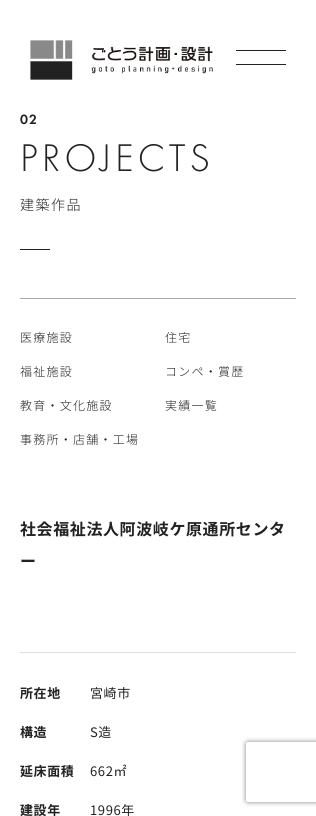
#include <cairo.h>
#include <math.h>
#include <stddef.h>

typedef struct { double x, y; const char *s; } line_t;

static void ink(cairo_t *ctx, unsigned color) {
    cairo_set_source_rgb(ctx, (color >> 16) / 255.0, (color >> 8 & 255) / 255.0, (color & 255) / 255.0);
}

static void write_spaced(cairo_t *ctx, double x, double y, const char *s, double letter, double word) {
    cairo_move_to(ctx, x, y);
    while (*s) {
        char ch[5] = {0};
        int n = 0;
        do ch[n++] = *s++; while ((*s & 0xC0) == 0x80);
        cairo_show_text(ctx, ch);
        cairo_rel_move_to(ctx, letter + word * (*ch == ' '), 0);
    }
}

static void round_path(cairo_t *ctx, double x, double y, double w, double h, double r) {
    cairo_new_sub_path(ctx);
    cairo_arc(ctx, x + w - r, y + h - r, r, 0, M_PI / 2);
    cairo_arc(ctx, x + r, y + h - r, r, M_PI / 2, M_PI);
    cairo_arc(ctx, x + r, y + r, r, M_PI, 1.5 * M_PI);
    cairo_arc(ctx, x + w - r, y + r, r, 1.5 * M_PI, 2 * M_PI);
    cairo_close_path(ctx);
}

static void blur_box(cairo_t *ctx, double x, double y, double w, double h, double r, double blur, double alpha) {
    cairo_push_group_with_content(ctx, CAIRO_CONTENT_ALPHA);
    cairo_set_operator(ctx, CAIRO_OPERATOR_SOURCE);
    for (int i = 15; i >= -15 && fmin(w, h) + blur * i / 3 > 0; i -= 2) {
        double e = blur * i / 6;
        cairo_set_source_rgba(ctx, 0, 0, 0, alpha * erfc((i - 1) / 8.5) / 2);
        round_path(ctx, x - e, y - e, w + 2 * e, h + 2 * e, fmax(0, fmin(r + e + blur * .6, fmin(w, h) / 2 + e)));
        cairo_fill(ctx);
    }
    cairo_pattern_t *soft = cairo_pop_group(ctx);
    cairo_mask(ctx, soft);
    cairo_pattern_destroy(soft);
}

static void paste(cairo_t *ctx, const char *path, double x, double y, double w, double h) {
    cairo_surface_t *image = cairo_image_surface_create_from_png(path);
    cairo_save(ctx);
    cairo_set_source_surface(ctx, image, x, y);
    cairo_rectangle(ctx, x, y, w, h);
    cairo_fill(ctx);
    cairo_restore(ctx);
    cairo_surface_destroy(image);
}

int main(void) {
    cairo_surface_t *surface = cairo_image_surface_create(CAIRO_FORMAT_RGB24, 316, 816);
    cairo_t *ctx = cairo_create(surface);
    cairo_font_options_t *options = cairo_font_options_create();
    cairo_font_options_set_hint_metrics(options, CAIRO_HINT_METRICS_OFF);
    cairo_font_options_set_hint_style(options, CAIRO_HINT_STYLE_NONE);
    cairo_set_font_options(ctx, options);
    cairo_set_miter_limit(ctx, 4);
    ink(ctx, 0xFFFFFF);
    cairo_paint(ctx);
    paste(ctx, "media/1.png", 30, 40, 183, 40);
    ink(ctx, 0x222222);
    cairo_rectangle(ctx, 236, 50, 50, 1);
    cairo_fill(ctx);
    cairo_rectangle(ctx, 236, 64, 50, 1);
    cairo_fill(ctx);
    cairo_select_font_face(ctx, "Futura PT Medium", CAIRO_FONT_SLANT_NORMAL, CAIRO_FONT_WEIGHT_NORMAL);
    cairo_set_font_size(ctx, 14);
    write_spaced(ctx, 20, 124, "02", 1, 0);
    cairo_select_font_face(ctx, "Futura PT Light", CAIRO_FONT_SLANT_NORMAL, CAIRO_FONT_WEIGHT_NORMAL);
    cairo_set_font_size(ctx, 40);
    write_spaced(ctx, 20, 171, "PROJECTS", 4, 0);
    cairo_select_font_face(ctx, "Noto Sans JP Light", CAIRO_FONT_SLANT_NORMAL, CAIRO_FONT_WEIGHT_NORMAL);
    cairo_set_font_size(ctx, 14);
    write_spaced(ctx, 20, 210, "建築作品", 1.5, 0);
    cairo_rectangle(ctx, 20, 249, 30, 1);
    cairo_fill(ctx);
    ink(ctx, 0xAAAAAA);
    cairo_rectangle(ctx, 20, 298, 276, 1);
    cairo_fill(ctx);
    cairo_set_font_size(ctx, 12);
    ink(ctx, 0x222222);
    {
        static const line_t items[] = {
            {20, 342, "医療施設"},
            {165, 342, "住宅"},
            {20, 376, "福祉施設"},
            {165, 376, "コンペ・賞歴"},
            {20, 410, "教育・文化施設"},
            {165, 410, "実績一覧"},
            {20, 444, "事務所・店舗・工場"},
        };
        for (size_t i = 0; i < sizeof items / sizeof *items; i++) {
            write_spaced(ctx, items[i].x, items[i].y, items[i].s, 1.25, 0);
        }
    }
    cairo_select_font_face(ctx, "Noto Sans JP", CAIRO_FONT_SLANT_NORMAL, CAIRO_FONT_WEIGHT_BOLD);
    cairo_set_font_size(ctx, 16);
    write_spaced(ctx, 20, 535, "社会福祉法人阿波岐ケ原通所センタ", 0.6, 0);
    write_spaced(ctx, 20, 567, "ー", 0.6, 0);
    ink(ctx, 0xDDDDDD);
    cairo_rectangle(ctx, 20, 652, 276, 1);
    cairo_fill(ctx);
    cairo_set_font_size(ctx, 13);
    ink(ctx, 0x222222);
    write_spaced(ctx, 20, 698, "所在地", 0.6, 0);
    cairo_select_font_face(ctx, "Noto Sans JP", CAIRO_FONT_SLANT_NORMAL, CAIRO_FONT_WEIGHT_NORMAL);
    write_spaced(ctx, 90, 698, "宮崎市", 0.6, 0);
    cairo_select_font_face(ctx, "Noto Sans JP", CAIRO_FONT_SLANT_NORMAL, CAIRO_FONT_WEIGHT_BOLD);
    write_spaced(ctx, 20, 737, "構造", 0.6, 0);
    cairo_select_font_face(ctx, "Noto Sans JP", CAIRO_FONT_SLANT_NORMAL, CAIRO_FONT_WEIGHT_NORMAL);
    write_spaced(ctx, 90, 737, "S造", 0.6, 0);
    cairo_select_font_face(ctx, "Noto Sans JP", CAIRO_FONT_SLANT_NORMAL, CAIRO_FONT_WEIGHT_BOLD);
    write_spaced(ctx, 20, 776, "延床面積", 0.6, 0);
    cairo_select_font_face(ctx, "Noto Sans JP", CAIRO_FONT_SLANT_NORMAL, CAIRO_FONT_WEIGHT_NORMAL);
    write_spaced(ctx, 90, 776, "662㎡", 0.6, 0);
    cairo_select_font_face(ctx, "Noto Sans JP", CAIRO_FONT_SLANT_NORMAL, CAIRO_FONT_WEIGHT_BOLD);
    write_spaced(ctx, 20, 815, "建設年", 0.6, 0);
    cairo_select_font_face(ctx, "Noto Sans JP", CAIRO_FONT_SLANT_NORMAL, CAIRO_FONT_WEIGHT_NORMAL);
    write_spaced(ctx, 90, 815, "1996年", 0.6, 0);
    cairo_save(ctx);
    cairo_set_fill_rule(ctx, CAIRO_FILL_RULE_EVEN_ODD);
    cairo_new_path(ctx);
    cairo_move_to(ctx, 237, 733);
    cairo_line_to(ctx, 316, 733);
    cairo_line_to(ctx, 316, 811);
    cairo_line_to(ctx, 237, 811);
    cairo_close_path(ctx);
    cairo_move_to(ctx, 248, 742);
    cairo_line_to(ctx, 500, 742);
    cairo_curve_to(ctx, 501, 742, 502, 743, 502, 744);
    cairo_line_to(ctx, 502, 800);
    cairo_curve_to(ctx, 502, 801, 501, 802, 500, 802);
    cairo_line_to(ctx, 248, 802);
    cairo_curve_to(ctx, 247, 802, 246, 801, 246, 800);
    cairo_line_to(ctx, 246, 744);
    cairo_curve_to(ctx, 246, 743, 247, 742, 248, 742);
    cairo_close_path(ctx);
    cairo_clip(ctx);
    ink(ctx, 0x808080);
    blur_box(ctx, 246, 742, 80, 60, 2, 2.5, 1);
    cairo_restore(ctx);
    cairo_surface_write_to_png(surface, "image.png");
    cairo_font_options_destroy(options);
    cairo_destroy(ctx);
    cairo_surface_destroy(surface);
    return 0;
}
